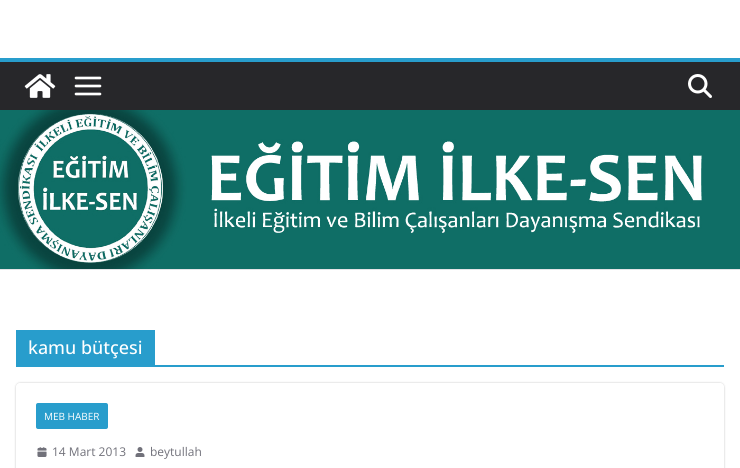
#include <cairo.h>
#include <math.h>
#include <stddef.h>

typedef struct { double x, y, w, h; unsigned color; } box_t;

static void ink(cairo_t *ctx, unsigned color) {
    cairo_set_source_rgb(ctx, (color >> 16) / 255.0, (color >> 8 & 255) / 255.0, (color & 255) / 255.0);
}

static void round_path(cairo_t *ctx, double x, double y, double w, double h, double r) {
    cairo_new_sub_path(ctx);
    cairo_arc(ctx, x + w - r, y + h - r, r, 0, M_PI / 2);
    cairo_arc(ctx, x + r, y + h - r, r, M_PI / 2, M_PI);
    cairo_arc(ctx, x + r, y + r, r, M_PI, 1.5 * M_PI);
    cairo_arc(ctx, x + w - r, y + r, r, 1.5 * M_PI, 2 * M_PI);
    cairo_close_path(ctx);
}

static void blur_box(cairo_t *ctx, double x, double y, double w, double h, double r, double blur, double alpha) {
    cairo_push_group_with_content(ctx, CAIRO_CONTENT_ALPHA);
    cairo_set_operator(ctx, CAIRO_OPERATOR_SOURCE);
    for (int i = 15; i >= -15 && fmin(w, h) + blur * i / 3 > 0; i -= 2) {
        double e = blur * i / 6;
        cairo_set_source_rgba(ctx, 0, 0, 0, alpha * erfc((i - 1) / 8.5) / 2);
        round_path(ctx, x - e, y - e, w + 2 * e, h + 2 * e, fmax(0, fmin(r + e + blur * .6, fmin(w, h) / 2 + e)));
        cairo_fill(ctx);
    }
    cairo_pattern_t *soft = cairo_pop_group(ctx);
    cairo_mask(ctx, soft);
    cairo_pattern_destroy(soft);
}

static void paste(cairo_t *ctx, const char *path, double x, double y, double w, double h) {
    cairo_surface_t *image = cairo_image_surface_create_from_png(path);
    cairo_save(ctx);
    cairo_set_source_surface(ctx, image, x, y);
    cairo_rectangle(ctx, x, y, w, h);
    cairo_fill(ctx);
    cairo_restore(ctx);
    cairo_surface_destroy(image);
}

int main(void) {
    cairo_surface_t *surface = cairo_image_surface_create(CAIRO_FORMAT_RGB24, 740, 468);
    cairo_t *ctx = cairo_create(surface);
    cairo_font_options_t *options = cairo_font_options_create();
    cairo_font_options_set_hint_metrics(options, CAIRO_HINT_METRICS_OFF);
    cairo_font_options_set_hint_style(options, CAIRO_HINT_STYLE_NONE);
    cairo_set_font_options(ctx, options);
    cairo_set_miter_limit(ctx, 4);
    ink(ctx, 0xFFFFFF);
    cairo_paint(ctx);
    ink(ctx, 0x27272A);
    cairo_rectangle(ctx, 0, 62, 740, 48);
    cairo_fill(ctx);
    ink(ctx, 0x289DCC);
    cairo_rectangle(ctx, 0, 58, 740, 4);
    cairo_fill(ctx);
    paste(ctx, "media/1.png", 24, 74, 32, 24);
    paste(ctx, "media/2.png", 74, 76, 28, 20);
    paste(ctx, "media/3.png", 688, 74, 24, 24);
    paste(ctx, "media/4.png", 0, 110, 740, 159);
    {
        static const box_t items[] = {
            {0, 269, 740, 1, 0xE4E4E7},
            {16, 365, 708, 2, 0x289DCC},
            {16, 330, 139, 35, 0x289DCC},
        };
        for (size_t i = 0; i < sizeof items / sizeof *items; i++) {
            ink(ctx, items[i].color);
            cairo_rectangle(ctx, items[i].x, items[i].y, items[i].w, items[i].h);
            cairo_fill(ctx);
        }
    }
    cairo_select_font_face(ctx, "Open Sans Medium", CAIRO_FONT_SLANT_NORMAL, CAIRO_FONT_WEIGHT_NORMAL);
    cairo_set_font_size(ctx, 18);
    ink(ctx, 0xFFFFFF);
    cairo_move_to(ctx, 28, 354);
    cairo_show_text(ctx, "kamu bütçesi");
    cairo_save(ctx);
    cairo_set_fill_rule(ctx, CAIRO_FILL_RULE_EVEN_ODD);
    cairo_new_path(ctx);
    cairo_move_to(ctx, 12, 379);
    cairo_line_to(ctx, 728, 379);
    cairo_line_to(ctx, 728, 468);
    cairo_line_to(ctx, 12, 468);
    cairo_close_path(ctx);
    cairo_move_to(ctx, 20, 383);
    cairo_line_to(ctx, 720, 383);
    cairo_curve_to(ctx, 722, 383, 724, 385, 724, 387);
    cairo_line_to(ctx, 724, 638);
    cairo_curve_to(ctx, 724, 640, 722, 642, 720, 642);
    cairo_line_to(ctx, 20, 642);
    cairo_curve_to(ctx, 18, 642, 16, 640, 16, 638);
    cairo_line_to(ctx, 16, 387);
    cairo_curve_to(ctx, 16, 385, 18, 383, 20, 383);
    cairo_close_path(ctx);
    cairo_clip(ctx);
    ink(ctx, 0x000000);
    blur_box(ctx, 16, 383, 708, 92, 4, 1, 0.24);
    cairo_restore(ctx);
    ink(ctx, 0x289DCC);
    round_path(ctx, 36, 403, 72, 26, 2);
    cairo_fill(ctx);
    cairo_select_font_face(ctx, "Open Sans", CAIRO_FONT_SLANT_NORMAL, CAIRO_FONT_WEIGHT_NORMAL);
    cairo_set_font_size(ctx, 10);
    ink(ctx, 0xFFFFFF);
    cairo_move_to(ctx, 44, 420);
    cairo_show_text(ctx, "MEB HABER");
    paste(ctx, "media/5.png", 37, 447, 10, 10);
    cairo_set_font_size(ctx, 12);
    ink(ctx, 0x71717A);
    cairo_move_to(ctx, 52, 456);
    cairo_show_text(ctx, "14 Mart 2013");
    paste(ctx, "media/6.png", 135, 447, 10, 10);
    cairo_move_to(ctx, 150, 456);
    cairo_show_text(ctx, "beytullah");
    cairo_surface_write_to_png(surface, "image.png");
    cairo_font_options_destroy(options);
    cairo_destroy(ctx);
    cairo_surface_destroy(surface);
    return 0;
}
